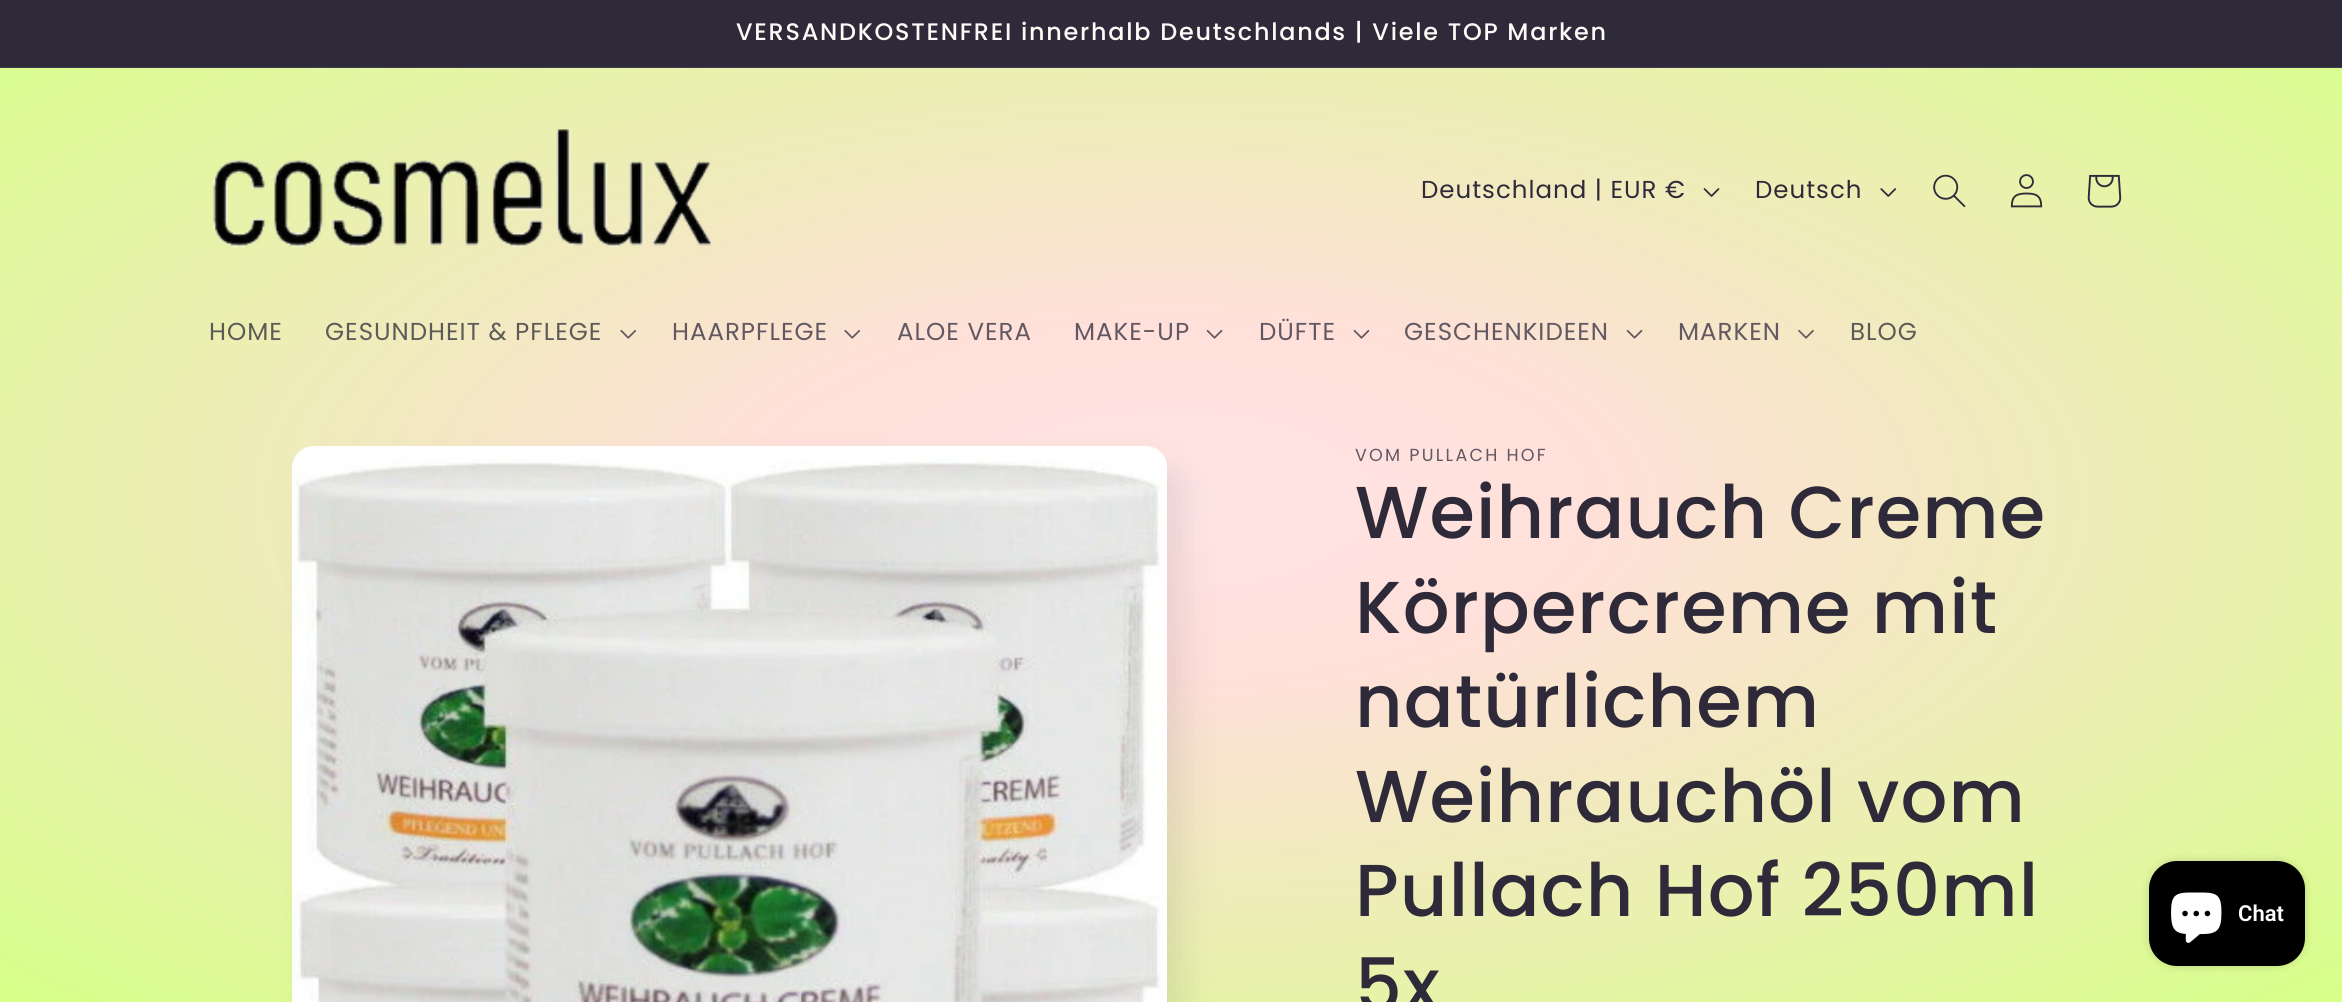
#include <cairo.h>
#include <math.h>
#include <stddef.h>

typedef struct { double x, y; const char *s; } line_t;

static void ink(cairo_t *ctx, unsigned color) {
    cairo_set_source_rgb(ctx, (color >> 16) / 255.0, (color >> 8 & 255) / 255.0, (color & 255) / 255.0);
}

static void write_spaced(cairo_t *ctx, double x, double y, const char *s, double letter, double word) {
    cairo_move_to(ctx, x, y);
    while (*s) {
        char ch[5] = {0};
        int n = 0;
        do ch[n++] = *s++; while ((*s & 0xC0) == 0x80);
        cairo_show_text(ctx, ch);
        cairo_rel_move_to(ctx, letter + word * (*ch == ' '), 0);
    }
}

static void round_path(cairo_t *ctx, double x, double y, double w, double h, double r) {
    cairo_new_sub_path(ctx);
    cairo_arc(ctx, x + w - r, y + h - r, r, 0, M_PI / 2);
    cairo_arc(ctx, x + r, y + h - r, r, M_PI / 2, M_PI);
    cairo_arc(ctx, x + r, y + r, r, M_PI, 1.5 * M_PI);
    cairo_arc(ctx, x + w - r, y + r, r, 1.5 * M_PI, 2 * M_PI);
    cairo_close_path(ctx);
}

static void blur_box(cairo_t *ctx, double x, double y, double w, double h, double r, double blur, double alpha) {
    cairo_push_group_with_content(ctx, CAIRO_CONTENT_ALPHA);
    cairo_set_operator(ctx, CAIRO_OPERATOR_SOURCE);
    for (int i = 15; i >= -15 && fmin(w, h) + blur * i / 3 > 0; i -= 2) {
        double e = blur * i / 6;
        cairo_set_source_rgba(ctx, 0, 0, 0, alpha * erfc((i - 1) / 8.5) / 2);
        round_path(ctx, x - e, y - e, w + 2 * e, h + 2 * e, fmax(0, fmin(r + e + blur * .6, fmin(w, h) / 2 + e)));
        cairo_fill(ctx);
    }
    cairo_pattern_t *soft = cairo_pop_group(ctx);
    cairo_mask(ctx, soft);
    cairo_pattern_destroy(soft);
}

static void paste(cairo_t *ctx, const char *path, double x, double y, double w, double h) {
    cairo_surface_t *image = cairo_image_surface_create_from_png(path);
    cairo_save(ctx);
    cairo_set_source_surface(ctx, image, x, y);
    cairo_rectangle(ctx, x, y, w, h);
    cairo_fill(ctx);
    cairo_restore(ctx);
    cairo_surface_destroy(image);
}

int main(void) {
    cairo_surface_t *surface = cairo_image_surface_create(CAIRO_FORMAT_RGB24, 2342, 1002);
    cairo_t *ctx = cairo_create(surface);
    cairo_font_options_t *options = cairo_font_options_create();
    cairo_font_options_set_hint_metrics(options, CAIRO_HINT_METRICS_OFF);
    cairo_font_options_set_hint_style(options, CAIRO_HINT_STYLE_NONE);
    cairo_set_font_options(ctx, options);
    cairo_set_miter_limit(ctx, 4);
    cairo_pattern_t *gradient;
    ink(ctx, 0xFFFFFF);
    cairo_paint(ctx);
    ink(ctx, 0x2E2A39);
    cairo_rectangle(ctx, 0, 0, 2342, 67);
    cairo_fill(ctx);
    ink(ctx, 0x3F3B48);
    cairo_rectangle(ctx, 0, 67, 2342, 1);
    cairo_fill(ctx);
    cairo_select_font_face(ctx, "Poppins Medium", CAIRO_FONT_SLANT_NORMAL, CAIRO_FONT_WEIGHT_NORMAL);
    cairo_set_font_size(ctx, 23.9);
    ink(ctx, 0xFDFBF7);
    write_spaced(ctx, 736, 40, "VERSANDKOSTENFREI innerhalb Deutschlands | Viele TOP Marken", 1.75, 0);
    gradient = cairo_pattern_create_radial(0, 0, 0, 0, 0, 1);
    cairo_pattern_set_matrix(gradient, &(cairo_matrix_t){1.0 / 1657, 0, 0, 1.0 / 709, -1.0 * 1172 / 1657, -1.0 * 501 / 709});
    cairo_pattern_add_color_stop_rgba(gradient, 0, 1, 0.898, 0.898, 1);
    cairo_pattern_add_color_stop_rgba(gradient, 0.25, 1, 0.878, 0.855, 1);
    cairo_pattern_add_color_stop_rgba(gradient, 1, 0.843, 1, 0.537, 1);
    cairo_set_source(ctx, gradient);
    cairo_pattern_destroy(gradient);
    cairo_rectangle(ctx, 0, 69, 2342, 335);
    cairo_fill(ctx);
    gradient = cairo_pattern_create_radial(0, 0, 0, 0, 0, 1);
    cairo_pattern_set_matrix(gradient, &(cairo_matrix_t){1.0 / 1657, 0, 0, 1.0 / 709, -1.0 * 1172 / 1657, -1.0 * 501 / 709});
    cairo_pattern_add_color_stop_rgba(gradient, 0, 1, 0.906, 0.902, 1);
    cairo_pattern_add_color_stop_rgba(gradient, 0.25, 1, 0.886, 0.863, 1);
    cairo_pattern_add_color_stop_rgba(gradient, 1, 0.855, 1, 0.573, 1);
    cairo_set_source(ctx, gradient);
    cairo_pattern_destroy(gradient);
    cairo_rectangle(ctx, 0, 68, 2342, 1);
    cairo_fill(ctx);
    paste(ctx, "media/1.png", 213, 129, 500, 131);
    cairo_select_font_face(ctx, "Poppins", CAIRO_FONT_SLANT_NORMAL, CAIRO_FONT_WEIGHT_NORMAL);
    cairo_set_font_size(ctx, 24.5);
    ink(ctx, 0x2E2A39);
    write_spaced(ctx, 1421, 198, "Deutschland | EUR €", 1, 0);
    paste(ctx, "media/2.png", 1703, 188, 17, 9);
    write_spaced(ctx, 1755, 198, "Deutsch", 1, 0);
    paste(ctx, "media/3.png", 1880, 188, 16, 9);
    paste(ctx, "media/4.png", 1933, 174, 33, 34);
    paste(ctx, "media/5.png", 2010, 174, 33, 34);
    paste(ctx, "media/6.png", 2087, 174, 35, 34);
    ink(ctx, 0x5D5B57);
    write_spaced(ctx, 209, 340, "HOME", 1, 0);
    write_spaced(ctx, 325, 340, "GESUNDHEIT & PFLEGE", 1, 0);
    paste(ctx, "media/7.png", 620, 329, 17, 10);
    ink(ctx, 0x625862);
    write_spaced(ctx, 672, 340, "HAARPFLEGE", 1, 0);
    paste(ctx, "media/8.png", 844, 329, 17, 10);
    write_spaced(ctx, 897, 340, "ALOE VERA", 1, 0);
    write_spaced(ctx, 1074, 340, "MAKE-UP", 1, 0);
    paste(ctx, "media/9.png", 1206, 329, 17, 10);
    write_spaced(ctx, 1259, 340, "DÜFTE", 1, 0);
    paste(ctx, "media/10.png", 1353, 329, 17, 10);
    write_spaced(ctx, 1404, 340, "GESCHENKIDEEN", 1, 0);
    paste(ctx, "media/11.png", 1626, 329, 17, 10);
    write_spaced(ctx, 1678, 340, "MARKEN", 1, 0);
    paste(ctx, "media/12.png", 1798, 330, 16, 9);
    ink(ctx, 0x5D5B57);
    write_spaced(ctx, 1850, 340, "BLOG", 1, 0);
    gradient = cairo_pattern_create_radial(0, 0, 0, 0, 0, 1);
    cairo_pattern_set_matrix(gradient, &(cairo_matrix_t){1.0 / 1657, 0, 0, 1.0 / 709, -1.0 * 1172 / 1657, -1.0 * 501 / 709});
    cairo_pattern_add_color_stop_rgba(gradient, 0, 1, 0.898, 0.898, 1);
    cairo_pattern_add_color_stop_rgba(gradient, 0.25, 1, 0.878, 0.855, 1);
    cairo_pattern_add_color_stop_rgba(gradient, 1, 0.843, 1, 0.537, 1);
    cairo_set_source(ctx, gradient);
    cairo_pattern_destroy(gradient);
    cairo_rectangle(ctx, 0, 404, 2342, 598);
    cairo_fill(ctx);
    ink(ctx, 0x2E2A39);
    blur_box(ctx, 310, 467, 875, 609, 21, 17.5, 0.1);
    gradient = cairo_pattern_create_radial(0, 0, 0, 0, 0, 1);
    cairo_pattern_set_matrix(gradient, &(cairo_matrix_t){1.0 / 1657, 0, 0, 1.0 / 709, -1.0 * 1172 / 1657, -1.0 * 501 / 709});
    cairo_pattern_add_color_stop_rgba(gradient, 0, 1, 0.898, 0.898, 1);
    cairo_pattern_add_color_stop_rgba(gradient, 0.25, 1, 0.878, 0.855, 1);
    cairo_pattern_add_color_stop_rgba(gradient, 1, 0.843, 1, 0.537, 1);
    cairo_set_source(ctx, gradient);
    cairo_pattern_destroy(gradient);
    cairo_new_path(ctx);
    cairo_move_to(ctx, 313, 446);
    cairo_line_to(ctx, 1146, 446);
    cairo_curve_to(ctx, 1157.5, 446, 1167, 455.5, 1167, 467);
    cairo_line_to(ctx, 1167, 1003);
    cairo_line_to(ctx, 292, 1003);
    cairo_line_to(ctx, 292, 467);
    cairo_curve_to(ctx, 292, 455.5, 301.5, 446, 313, 446);
    cairo_close_path(ctx);
    cairo_fill(ctx);
    paste(ctx, "media/13.png", 292, 446, 875, 556);
    cairo_set_font_size(ctx, 17.5);
    ink(ctx, 0x625862);
    write_spaced(ctx, 1355, 461, "VOM PULLACH HOF", 2.25, 0);
    cairo_select_font_face(ctx, "Poppins Medium", CAIRO_FONT_SLANT_NORMAL, CAIRO_FONT_WEIGHT_NORMAL);
    cairo_set_font_size(ctx, 73.5);
    ink(ctx, 0x2E2A39);
    {
        static const line_t items[] = {
            {1355, 538, "Weihrauch Creme"},
            {1355, 633, "Körpercreme mit"},
            {1355, 727, "natürlichem"},
            {1355, 822, "Weihrauchöl vom"},
            {1355, 916, "Pullach Hof 250ml"},
            {1355, 1011, "5x"},
        };
        for (size_t i = 0; i < sizeof items / sizeof *items; i++) {
            write_spaced(ctx, items[i].x, items[i].y, items[i].s, 1.1, 0);
        }
    }
    ink(ctx, 0x000000);
    blur_box(ctx, 2149, 861, 156, 105, 28, 4.5, 0.15);
    ink(ctx, 0x000000);
    round_path(ctx, 2149, 861, 156, 105, 28);
    cairo_fill(ctx);
    paste(ctx, "media/14.png", 2171, 892, 51, 51);
    cairo_select_font_face(ctx, "Roboto SemiBold", CAIRO_FONT_SLANT_NORMAL, CAIRO_FONT_WEIGHT_NORMAL);
    cairo_set_font_size(ctx, 22);
    ink(ctx, 0xFFFFFF);
    cairo_move_to(ctx, 2238, 921);
    cairo_show_text(ctx, "Chat");
    cairo_surface_write_to_png(surface, "image.png");
    cairo_font_options_destroy(options);
    cairo_destroy(ctx);
    cairo_surface_destroy(surface);
    return 0;
}
